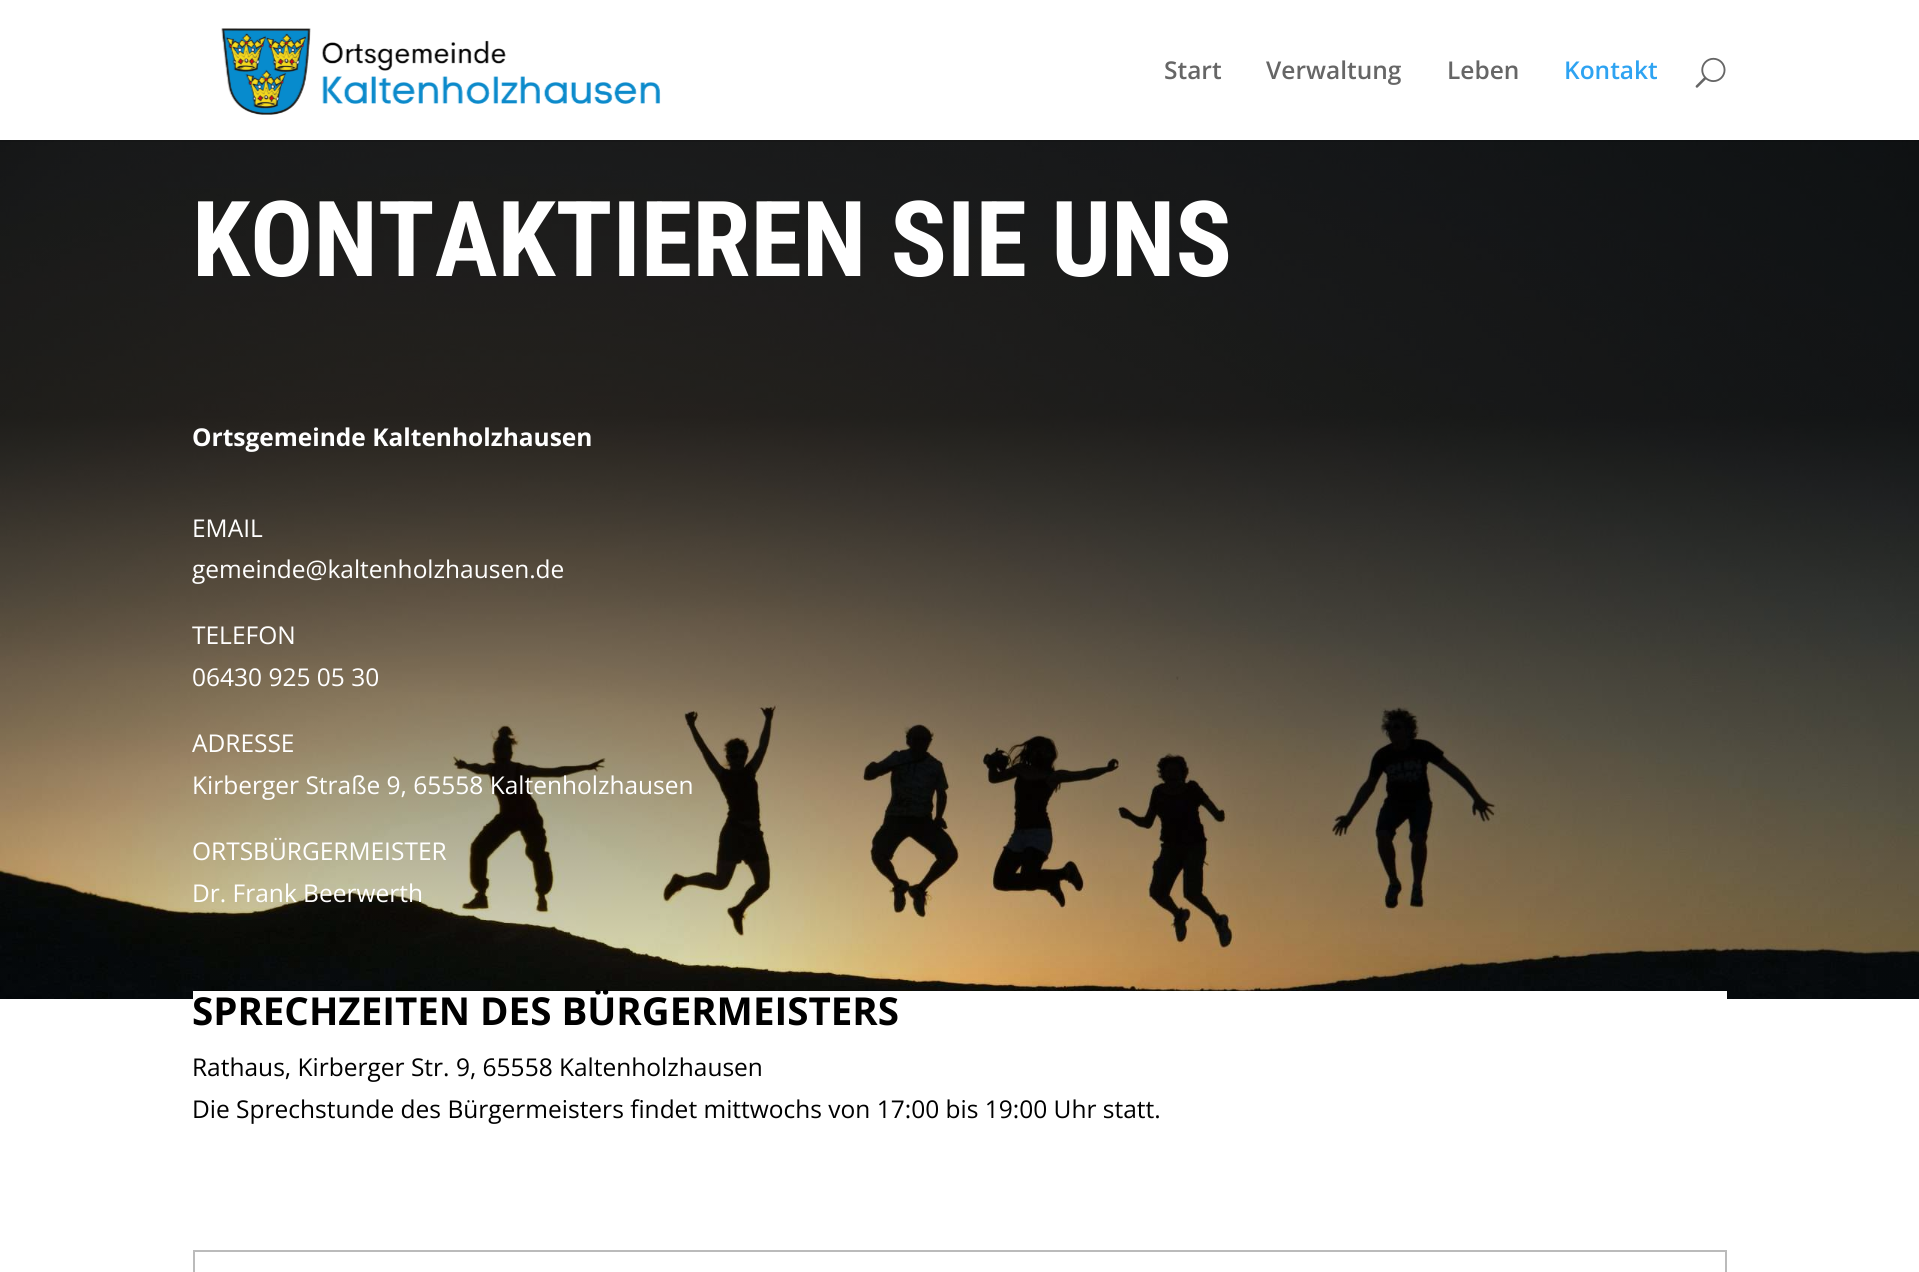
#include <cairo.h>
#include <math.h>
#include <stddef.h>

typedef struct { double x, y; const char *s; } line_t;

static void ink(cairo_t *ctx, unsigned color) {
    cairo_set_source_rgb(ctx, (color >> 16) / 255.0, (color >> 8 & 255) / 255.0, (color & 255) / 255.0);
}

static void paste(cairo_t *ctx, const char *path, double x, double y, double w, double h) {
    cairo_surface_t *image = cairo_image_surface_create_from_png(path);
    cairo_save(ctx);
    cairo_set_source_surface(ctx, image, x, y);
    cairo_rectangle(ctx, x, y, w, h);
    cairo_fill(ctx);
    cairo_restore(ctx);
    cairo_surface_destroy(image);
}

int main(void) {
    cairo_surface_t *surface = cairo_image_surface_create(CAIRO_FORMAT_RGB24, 1919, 1272);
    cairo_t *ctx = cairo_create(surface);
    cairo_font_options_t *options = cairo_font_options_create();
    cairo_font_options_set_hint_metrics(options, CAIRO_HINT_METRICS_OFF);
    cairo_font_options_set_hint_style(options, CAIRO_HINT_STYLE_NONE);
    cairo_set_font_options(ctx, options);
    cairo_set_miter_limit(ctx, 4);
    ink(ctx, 0xFFFFFF);
    cairo_paint(ctx);
    paste(ctx, "media/3.png", 0, 140, 1919, 859);
    cairo_set_source_rgba(ctx, 0, 0, 0, 0.1);
    cairo_new_path(ctx);
    cairo_move_to(ctx, 0, 140);
    cairo_line_to(ctx, 0, 142);
    cairo_line_to(ctx, 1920, 142);
    cairo_line_to(ctx, 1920, 2);
    cairo_line_to(ctx, 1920, 140);
    cairo_close_path(ctx);
    cairo_fill(ctx);
    paste(ctx, "media/1.png", 221, 28, 440, 87);
    cairo_select_font_face(ctx, "Open Sans SemiBold", CAIRO_FONT_SLANT_NORMAL, CAIRO_FONT_WEIGHT_NORMAL);
    cairo_set_font_size(ctx, 24.5);
    ink(ctx, 0x666666);
    {
        static const line_t items[] = {
            {1164, 79, "Start"},
            {1266, 79, "Verwaltung"},
            {1447, 79, "Leben"},
        };
        for (size_t i = 0; i < sizeof items / sizeof *items; i++) {
            cairo_move_to(ctx, items[i].x, items[i].y);
            cairo_show_text(ctx, items[i].s);
        }
    }
    ink(ctx, 0x2EA3F2);
    cairo_move_to(ctx, 1564, 79);
    cairo_show_text(ctx, "Kontakt");
    paste(ctx, "media/2.png", 1695, 57, 31, 31);
    cairo_select_font_face(ctx, "Roboto Condensed", CAIRO_FONT_SLANT_NORMAL, CAIRO_FONT_WEIGHT_BOLD);
    cairo_set_font_size(ctx, 105);
    ink(ctx, 0xFFFFFF);
    cairo_move_to(ctx, 192, 276);
    cairo_show_text(ctx, "KONTAKTIEREN SIE UNS");
    cairo_select_font_face(ctx, "Open Sans", CAIRO_FONT_SLANT_NORMAL, CAIRO_FONT_WEIGHT_BOLD);
    cairo_set_font_size(ctx, 24.5);
    cairo_move_to(ctx, 192, 446);
    cairo_show_text(ctx, "Ortsgemeinde Kaltenholzhausen");
    cairo_select_font_face(ctx, "Open Sans", CAIRO_FONT_SLANT_NORMAL, CAIRO_FONT_WEIGHT_NORMAL);
    {
        static const line_t items[] = {
            {192, 537, "EMAIL"},
            {192, 578, "gemeinde@kaltenholzhausen.de"},
            {192, 644, "TELEFON"},
            {192, 686, "06430 925 05 30"},
            {192, 752, "ADRESSE"},
            {192, 794, "Kirberger Straße 9, 65558 Kaltenholzhausen"},
            {192, 860, "ORTSBÜRGERMEISTER"},
            {192, 902, "Dr. Frank Beerwerth"},
        };
        for (size_t i = 0; i < sizeof items / sizeof *items; i++) {
            cairo_move_to(ctx, items[i].x, items[i].y);
            cairo_show_text(ctx, items[i].s);
        }
    }
    cairo_rectangle(ctx, 193, 991, 1534, 8);
    cairo_fill(ctx);
    cairo_select_font_face(ctx, "Open Sans", CAIRO_FONT_SLANT_NORMAL, CAIRO_FONT_WEIGHT_BOLD);
    cairo_set_font_size(ctx, 38.5);
    ink(ctx, 0x000000);
    cairo_move_to(ctx, 192, 1025);
    cairo_show_text(ctx, "SPRECHZEITEN DES BÜRGERMEISTERS");
    cairo_select_font_face(ctx, "Open Sans", CAIRO_FONT_SLANT_NORMAL, CAIRO_FONT_WEIGHT_NORMAL);
    cairo_set_font_size(ctx, 24.5);
    cairo_move_to(ctx, 192, 1076);
    cairo_show_text(ctx, "Rathaus, Kirberger Str. 9, 65558 Kaltenholzhausen");
    cairo_move_to(ctx, 192, 1118);
    cairo_show_text(ctx, "Die Sprechstunde des Bürgermeisters findet mittwochs von 17:00 bis 19:00 Uhr statt.");
    cairo_rectangle(ctx, 194, 1251, 1532, 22);
    ink(ctx, 0xBBBBBB);
    cairo_stroke(ctx);
    cairo_surface_write_to_png(surface, "image.png");
    cairo_font_options_destroy(options);
    cairo_destroy(ctx);
    cairo_surface_destroy(surface);
    return 0;
}
